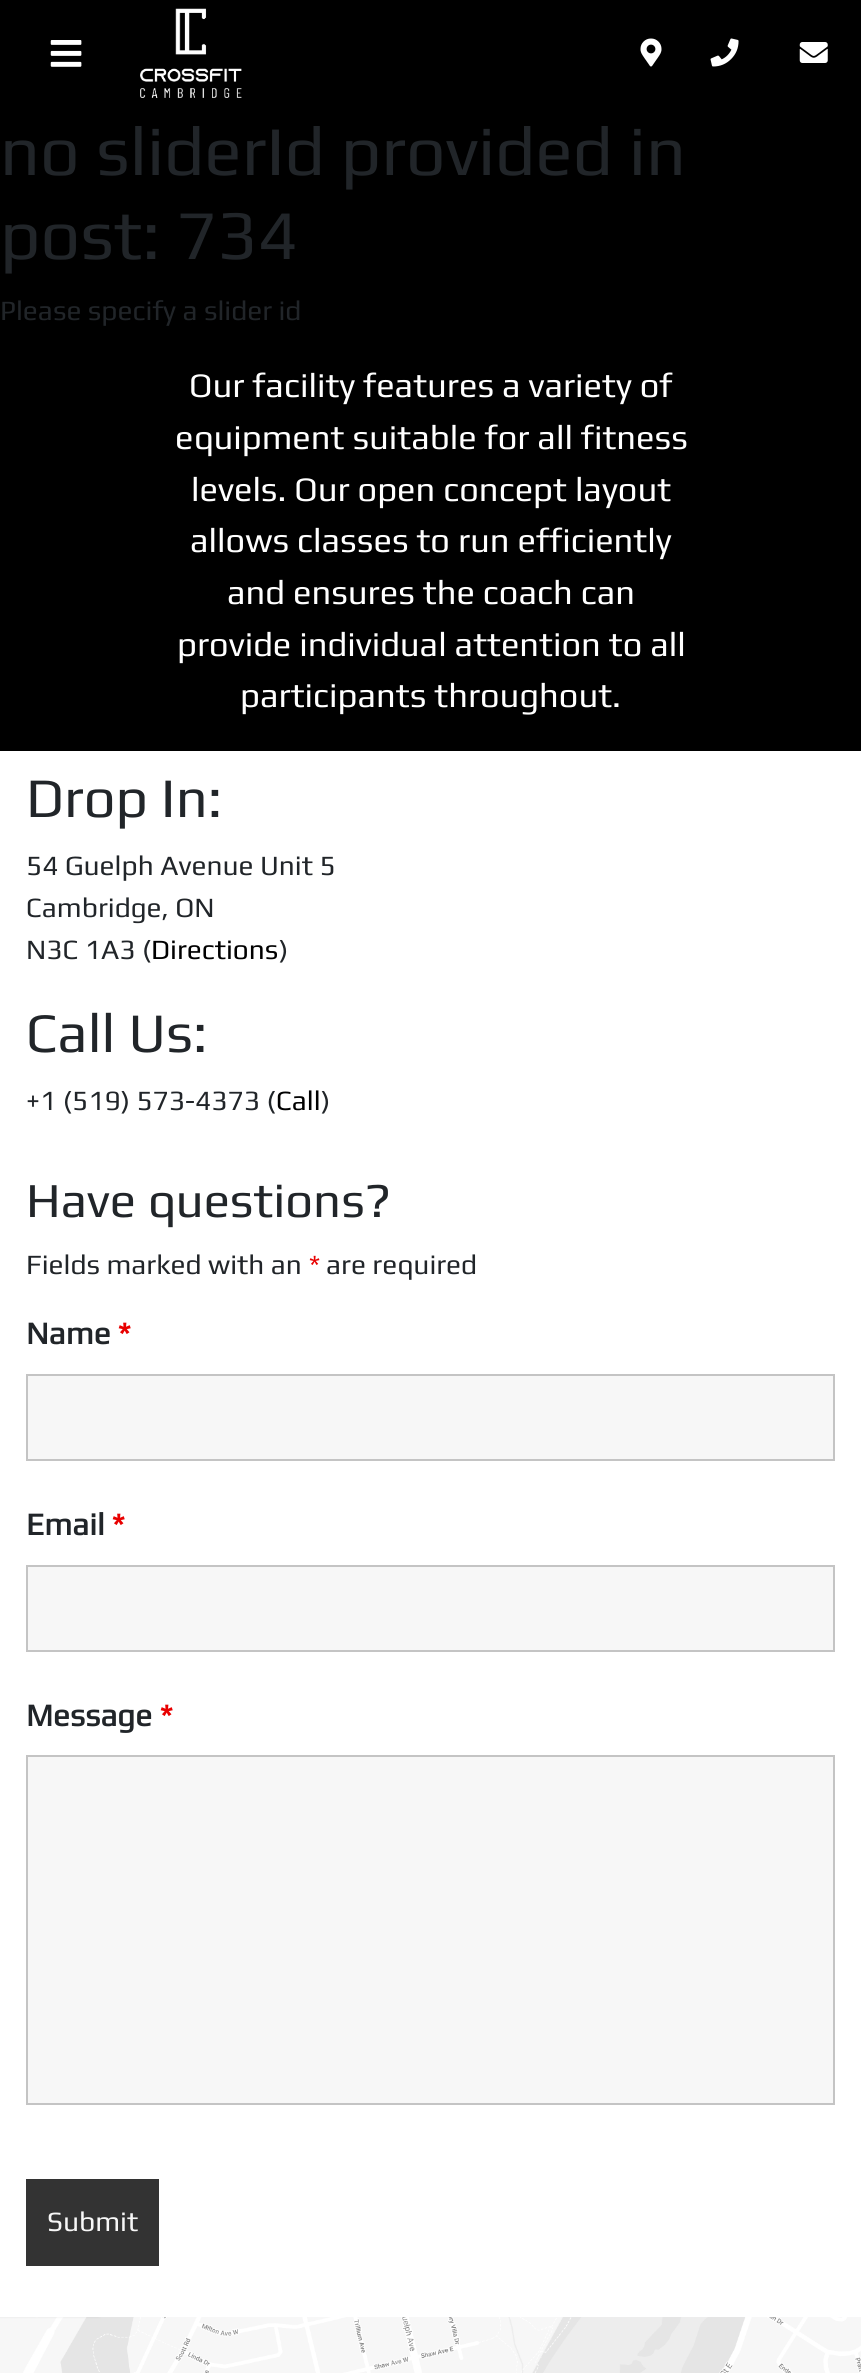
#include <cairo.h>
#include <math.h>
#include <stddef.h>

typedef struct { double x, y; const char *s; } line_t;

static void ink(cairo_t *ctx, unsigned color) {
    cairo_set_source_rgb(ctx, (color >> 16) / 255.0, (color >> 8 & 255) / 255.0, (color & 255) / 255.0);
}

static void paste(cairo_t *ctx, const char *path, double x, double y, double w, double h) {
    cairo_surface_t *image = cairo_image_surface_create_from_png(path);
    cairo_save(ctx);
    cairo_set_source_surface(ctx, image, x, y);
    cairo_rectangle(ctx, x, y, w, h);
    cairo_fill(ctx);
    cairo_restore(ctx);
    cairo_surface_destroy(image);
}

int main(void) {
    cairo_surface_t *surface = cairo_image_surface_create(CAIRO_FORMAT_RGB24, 861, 2373);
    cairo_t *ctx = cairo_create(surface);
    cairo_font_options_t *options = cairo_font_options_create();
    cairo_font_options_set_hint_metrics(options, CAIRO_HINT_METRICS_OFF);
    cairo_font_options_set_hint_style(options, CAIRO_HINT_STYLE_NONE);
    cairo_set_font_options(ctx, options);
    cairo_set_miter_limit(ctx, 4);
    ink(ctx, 0xFFFFFF);
    cairo_paint(ctx);
    ink(ctx, 0x000000);
    cairo_rectangle(ctx, 0, 0, 861, 751);
    cairo_fill(ctx);
    paste(ctx, "media/1.png", 50, 40, 32, 27);
    paste(ctx, "media/2.png", 140, 8, 102, 90);
    paste(ctx, "media/3.png", 640, 38, 22, 29);
    paste(ctx, "media/4.png", 710, 38, 29, 29);
    paste(ctx, "media/5.png", 799, 42, 29, 21);
    cairo_select_font_face(ctx, "Play", CAIRO_FONT_SLANT_NORMAL, CAIRO_FONT_WEIGHT_NORMAL);
    cairo_set_font_size(ctx, 70);
    ink(ctx, 0x212529);
    cairo_move_to(ctx, 0, 175);
    cairo_show_text(ctx, "no sliderId provided in");
    cairo_move_to(ctx, 0, 259);
    cairo_show_text(ctx, "post: 734");
    cairo_set_font_size(ctx, 28);
    cairo_move_to(ctx, 0, 320);
    cairo_show_text(ctx, "Please specify a slider id");
    cairo_set_font_size(ctx, 34.5);
    ink(ctx, 0xFFFFFF);
    {
        static const line_t items[] = {
            {189, 397, "Our facility features a variety of"},
            {175, 449, "equipment suitable for all fitness"},
            {191, 501, "levels. Our open concept layout"},
            {190, 552, "allows classes to run efficiently"},
            {227, 604, "and ensures the coach can"},
            {177, 656, "provide individual attention to all"},
            {240, 707, "participants throughout."},
        };
        for (size_t i = 0; i < sizeof items / sizeof *items; i++) {
            cairo_move_to(ctx, items[i].x, items[i].y);
            cairo_show_text(ctx, items[i].s);
        }
    }
    cairo_set_font_size(ctx, 56);
    ink(ctx, 0x212529);
    cairo_move_to(ctx, 26, 817);
    cairo_show_text(ctx, "Drop In:");
    cairo_set_font_size(ctx, 28);
    {
        static const line_t items[] = {
            {26, 875, "54 Guelph Avenue Unit 5"},
            {26, 917, "Cambridge, ON"},
            {26, 959, "N3C 1A3 ("},
        };
        for (size_t i = 0; i < sizeof items / sizeof *items; i++) {
            cairo_move_to(ctx, items[i].x, items[i].y);
            cairo_show_text(ctx, items[i].s);
        }
    }
    ink(ctx, 0x000000);
    cairo_move_to(ctx, 151, 959);
    cairo_show_text(ctx, "Directions");
    ink(ctx, 0x212529);
    cairo_move_to(ctx, 279, 959);
    cairo_show_text(ctx, ")");
    cairo_set_font_size(ctx, 56);
    cairo_move_to(ctx, 26, 1052);
    cairo_show_text(ctx, "Call Us:");
    cairo_set_font_size(ctx, 28);
    cairo_move_to(ctx, 26, 1110);
    cairo_show_text(ctx, "+1 (519) 573-4373 (");
    ink(ctx, 0x000000);
    cairo_move_to(ctx, 276, 1110);
    cairo_show_text(ctx, "Call");
    ink(ctx, 0x212529);
    cairo_move_to(ctx, 321, 1110);
    cairo_show_text(ctx, ")");
    cairo_set_font_size(ctx, 49);
    cairo_move_to(ctx, 26, 1217);
    cairo_show_text(ctx, "Have questions?");
    cairo_set_font_size(ctx, 28);
    cairo_move_to(ctx, 26, 1274);
    cairo_show_text(ctx, "Fields marked with an");
    ink(ctx, 0xE80000);
    cairo_move_to(ctx, 309, 1274);
    cairo_show_text(ctx, "*");
    ink(ctx, 0x212529);
    cairo_move_to(ctx, 326, 1274);
    cairo_show_text(ctx, "are required");
    cairo_select_font_face(ctx, "Play", CAIRO_FONT_SLANT_NORMAL, CAIRO_FONT_WEIGHT_BOLD);
    cairo_set_font_size(ctx, 31.5);
    cairo_move_to(ctx, 26, 1344);
    cairo_show_text(ctx, "Name");
    ink(ctx, 0xE80000);
    cairo_move_to(ctx, 118, 1344);
    cairo_show_text(ctx, "*");
    ink(ctx, 0xF7F7F7);
    cairo_rectangle(ctx, 27, 1375, 807, 85);
    cairo_fill_preserve(ctx);
    ink(ctx, 0xC4C4C4);
    cairo_stroke(ctx);
    ink(ctx, 0x212529);
    cairo_move_to(ctx, 26, 1535);
    cairo_show_text(ctx, "Email");
    ink(ctx, 0xE80000);
    cairo_move_to(ctx, 112, 1535);
    cairo_show_text(ctx, "*");
    ink(ctx, 0xF7F7F7);
    cairo_rectangle(ctx, 27, 1566, 807, 85);
    cairo_fill_preserve(ctx);
    ink(ctx, 0xC4C4C4);
    cairo_stroke(ctx);
    ink(ctx, 0x212529);
    cairo_move_to(ctx, 26, 1726);
    cairo_show_text(ctx, "Message");
    ink(ctx, 0xE80000);
    cairo_move_to(ctx, 160, 1726);
    cairo_show_text(ctx, "*");
    ink(ctx, 0xF7F7F7);
    cairo_rectangle(ctx, 27, 1756, 807, 348);
    cairo_fill_preserve(ctx);
    ink(ctx, 0xC4C4C4);
    cairo_stroke(ctx);
    ink(ctx, 0x333333);
    cairo_rectangle(ctx, 26, 2179, 133, 87);
    cairo_fill(ctx);
    cairo_select_font_face(ctx, "Play", CAIRO_FONT_SLANT_NORMAL, CAIRO_FONT_WEIGHT_NORMAL);
    cairo_set_font_size(ctx, 28);
    ink(ctx, 0xF7F7F7);
    cairo_move_to(ctx, 47, 2231);
    cairo_show_text(ctx, "Submit");
    paste(ctx, "media/6.png", 0, 2317, 861, 56);
    cairo_surface_write_to_png(surface, "image.png");
    cairo_font_options_destroy(options);
    cairo_destroy(ctx);
    cairo_surface_destroy(surface);
    return 0;
}
